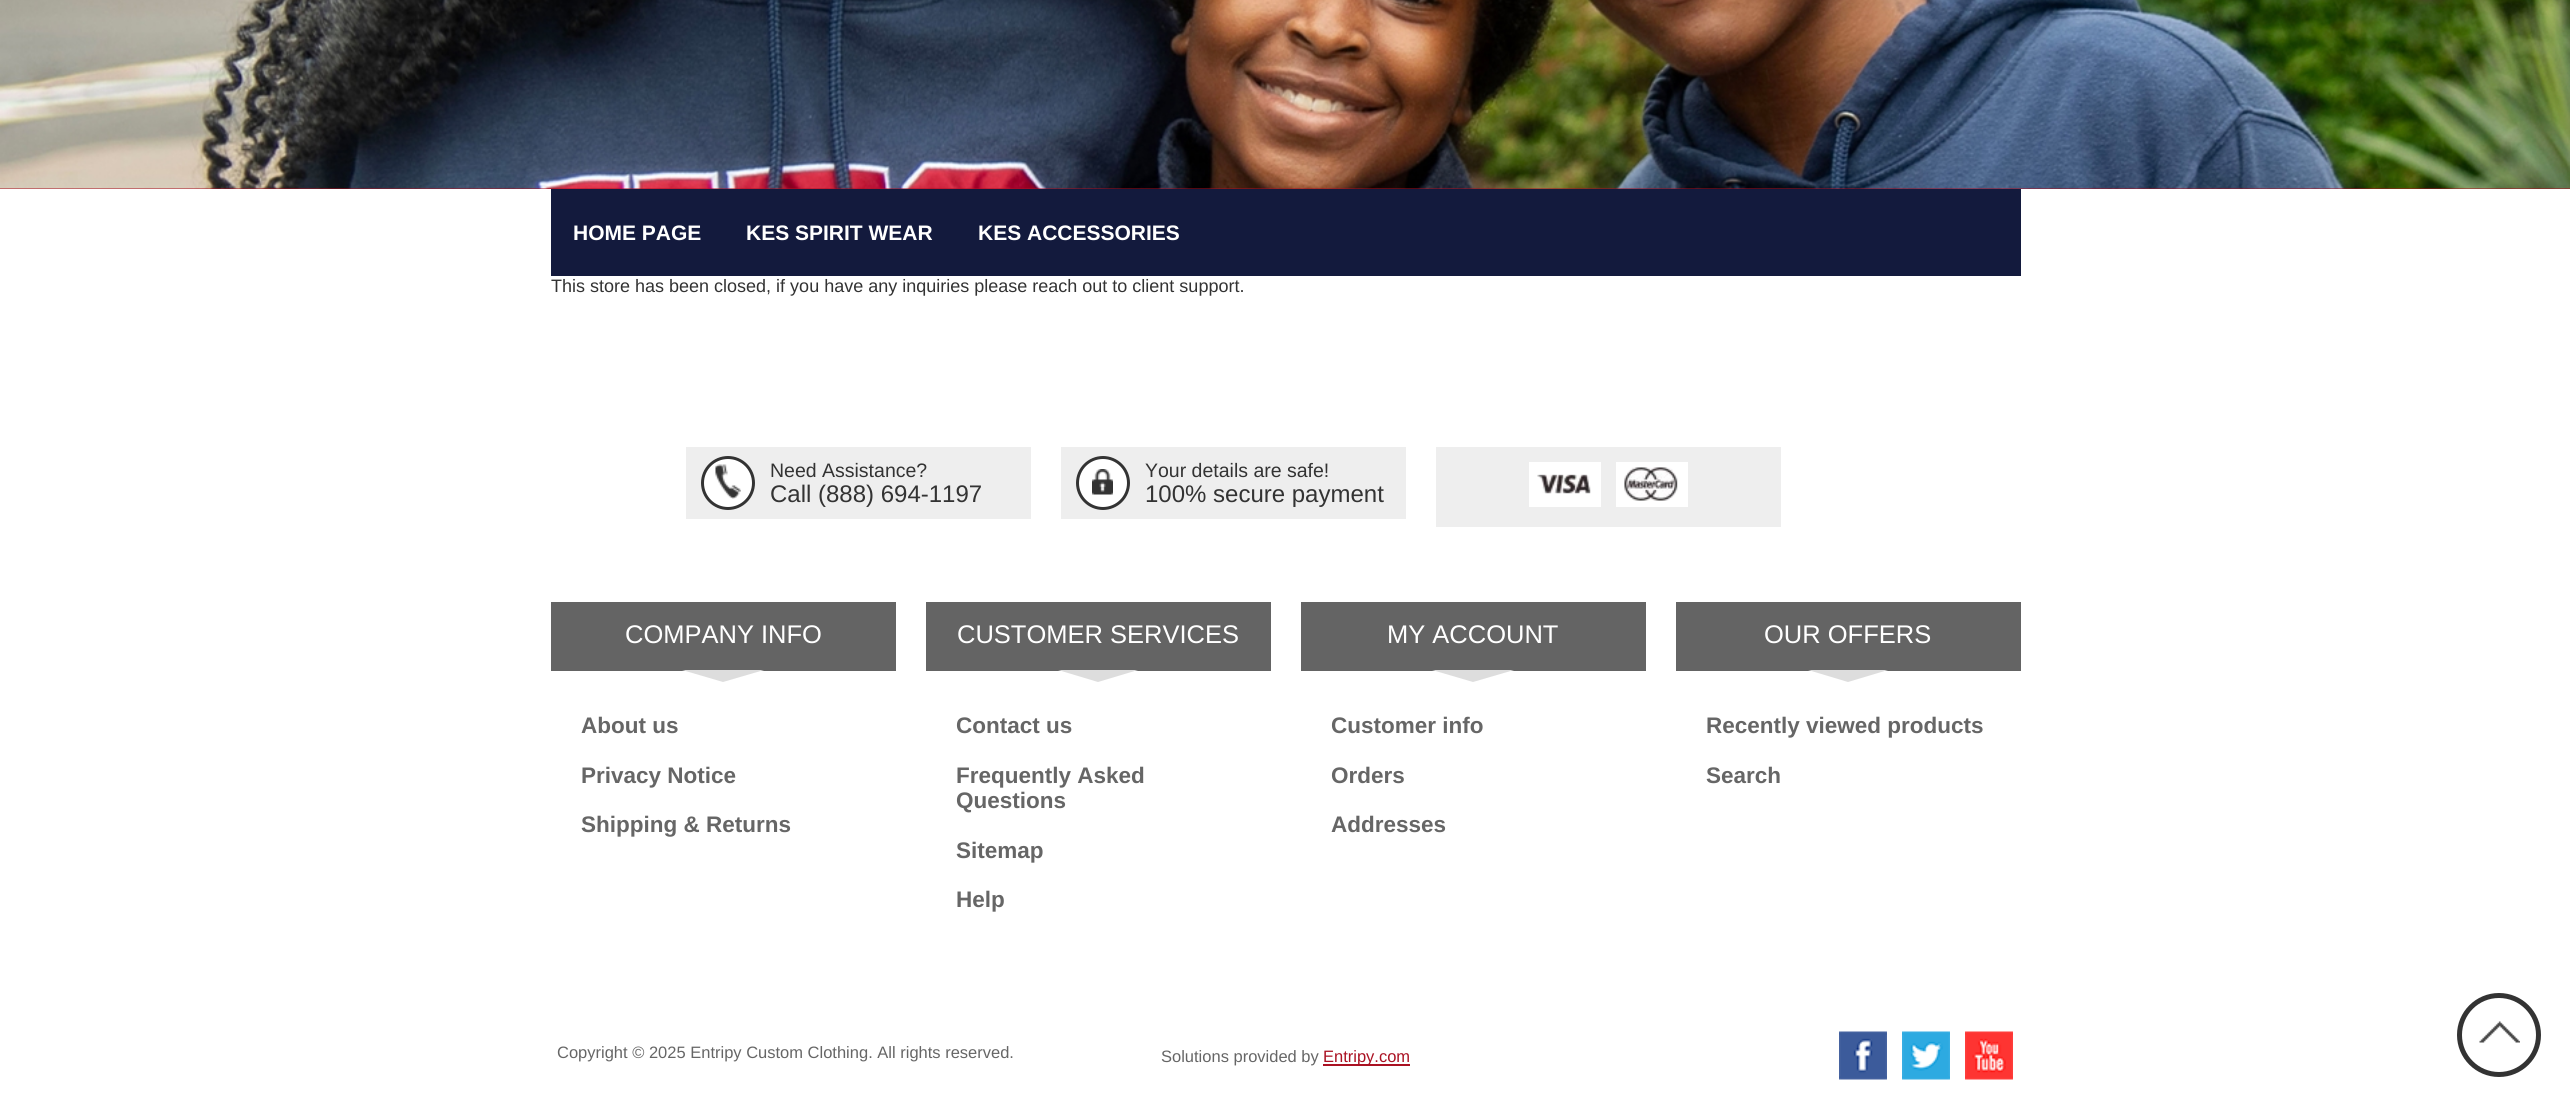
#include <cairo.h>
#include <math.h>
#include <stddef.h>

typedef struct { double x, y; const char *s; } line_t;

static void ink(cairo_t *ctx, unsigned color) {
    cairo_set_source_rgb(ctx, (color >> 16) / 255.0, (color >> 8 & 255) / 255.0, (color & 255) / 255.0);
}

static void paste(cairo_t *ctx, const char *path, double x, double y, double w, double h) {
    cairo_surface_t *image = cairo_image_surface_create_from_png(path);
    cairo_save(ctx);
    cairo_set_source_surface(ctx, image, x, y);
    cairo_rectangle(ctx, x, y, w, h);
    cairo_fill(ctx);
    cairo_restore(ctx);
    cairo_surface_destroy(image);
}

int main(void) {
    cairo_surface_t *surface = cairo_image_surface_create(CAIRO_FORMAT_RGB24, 2570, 1107);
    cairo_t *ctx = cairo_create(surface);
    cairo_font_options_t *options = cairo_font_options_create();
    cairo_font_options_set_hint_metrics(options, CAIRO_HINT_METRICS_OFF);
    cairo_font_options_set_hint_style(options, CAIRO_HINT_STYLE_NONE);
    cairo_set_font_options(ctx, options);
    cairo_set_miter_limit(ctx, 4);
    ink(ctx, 0xFFFFFF);
    cairo_paint(ctx);
    ink(ctx, 0xAA1122);
    cairo_rectangle(ctx, 0, 188, 2570, 1);
    cairo_fill(ctx);
    paste(ctx, "media/1.png", 0, 0, 2570, 189);
    ink(ctx, 0x131A3D);
    cairo_rectangle(ctx, 551, 189, 1470, 87);
    cairo_fill(ctx);
    cairo_select_font_face(ctx, "Liberation Sans", CAIRO_FONT_SLANT_NORMAL, CAIRO_FONT_WEIGHT_BOLD);
    cairo_set_font_size(ctx, 21);
    ink(ctx, 0xFFFFFF);
    {
        static const line_t items[] = {
            {573, 240, "HOME PAGE"},
            {746, 240, "KES SPIRIT WEAR"},
            {978, 240, "KES ACCESSORIES"},
        };
        for (size_t i = 0; i < sizeof items / sizeof *items; i++) {
            cairo_move_to(ctx, items[i].x, items[i].y);
            cairo_show_text(ctx, items[i].s);
        }
    }
    cairo_select_font_face(ctx, "Liberation Sans", CAIRO_FONT_SLANT_NORMAL, CAIRO_FONT_WEIGHT_NORMAL);
    cairo_set_font_size(ctx, 18);
    ink(ctx, 0x333333);
    cairo_move_to(ctx, 551, 292);
    cairo_show_text(ctx, "This store has been closed, if you have any inquiries please reach out to client support.");
    ink(ctx, 0xEEEEEE);
    cairo_rectangle(ctx, 686, 447, 345, 72);
    cairo_fill(ctx);
    ink(ctx, 0xFFFFFF);
    cairo_arc(ctx, 728, 483, 27, 0, 2 * M_PI);
    cairo_fill(ctx);
    paste(ctx, "media/2.png", 715, 464, 26, 35);
    cairo_arc(ctx, 728, 483, 25.5, 0, 2 * M_PI);
    ink(ctx, 0x333333);
    cairo_set_line_width(ctx, 3);
    cairo_stroke(ctx);
    cairo_set_font_size(ctx, 19.5);
    cairo_move_to(ctx, 770, 477);
    cairo_show_text(ctx, "Need Assistance?");
    cairo_set_font_size(ctx, 24);
    cairo_move_to(ctx, 770, 502);
    cairo_show_text(ctx, "Call (888) 694-1197");
    ink(ctx, 0xEEEEEE);
    cairo_rectangle(ctx, 1061, 447, 345, 72);
    cairo_fill(ctx);
    ink(ctx, 0xFFFFFF);
    cairo_arc(ctx, 1103, 483, 27, 0, 2 * M_PI);
    cairo_fill(ctx);
    paste(ctx, "media/3.png", 1092, 469, 21, 26);
    cairo_arc(ctx, 1103, 483, 25.5, 0, 2 * M_PI);
    ink(ctx, 0x333333);
    cairo_stroke(ctx);
    cairo_set_font_size(ctx, 19.5);
    cairo_move_to(ctx, 1145, 477);
    cairo_show_text(ctx, "Your details are safe!");
    cairo_set_font_size(ctx, 24);
    cairo_move_to(ctx, 1145, 502);
    cairo_show_text(ctx, "100% secure payment");
    ink(ctx, 0xEEEEEE);
    cairo_rectangle(ctx, 1436, 447, 345, 80);
    cairo_fill(ctx);
    ink(ctx, 0xFFFFFF);
    cairo_rectangle(ctx, 1529, 462, 72, 45);
    cairo_fill(ctx);
    paste(ctx, "media/4.png", 1537, 474, 54, 20);
    cairo_rectangle(ctx, 1616, 462, 72, 45);
    cairo_fill(ctx);
    paste(ctx, "media/5.png", 1624, 467, 54, 34);
    ink(ctx, 0x646464);
    cairo_rectangle(ctx, 551, 602, 345, 69);
    cairo_fill(ctx);
    cairo_set_font_size(ctx, 25.5);
    ink(ctx, 0xFFFFFF);
    cairo_move_to(ctx, 625, 643);
    cairo_show_text(ctx, "COMPANY INFO");
    ink(ctx, 0xDDDDDD);
    cairo_new_path(ctx);
    cairo_move_to(ctx, 682, 670);
    cairo_line_to(ctx, 764, 670);
    cairo_line_to(ctx, 723, 682);
    cairo_close_path(ctx);
    cairo_fill(ctx);
    cairo_select_font_face(ctx, "Liberation Sans", CAIRO_FONT_SLANT_NORMAL, CAIRO_FONT_WEIGHT_BOLD);
    cairo_set_font_size(ctx, 22.5);
    ink(ctx, 0x666666);
    {
        static const line_t items[] = {
            {581, 733, "About us"},
            {581, 783, "Privacy Notice"},
            {581, 832, "Shipping & Returns"},
        };
        for (size_t i = 0; i < sizeof items / sizeof *items; i++) {
            cairo_move_to(ctx, items[i].x, items[i].y);
            cairo_show_text(ctx, items[i].s);
        }
    }
    ink(ctx, 0x646464);
    cairo_rectangle(ctx, 926, 602, 345, 69);
    cairo_fill(ctx);
    cairo_select_font_face(ctx, "Liberation Sans", CAIRO_FONT_SLANT_NORMAL, CAIRO_FONT_WEIGHT_NORMAL);
    cairo_set_font_size(ctx, 25.5);
    ink(ctx, 0xFFFFFF);
    cairo_move_to(ctx, 957, 643);
    cairo_show_text(ctx, "CUSTOMER SERVICES");
    ink(ctx, 0xDDDDDD);
    cairo_new_path(ctx);
    cairo_move_to(ctx, 1058, 670);
    cairo_line_to(ctx, 1138, 670);
    cairo_line_to(ctx, 1098, 682);
    cairo_close_path(ctx);
    cairo_fill(ctx);
    cairo_select_font_face(ctx, "Liberation Sans", CAIRO_FONT_SLANT_NORMAL, CAIRO_FONT_WEIGHT_BOLD);
    cairo_set_font_size(ctx, 22.5);
    ink(ctx, 0x666666);
    {
        static const line_t items[] = {
            {956, 733, "Contact us"},
            {956, 783, "Frequently Asked"},
            {956, 808, "Questions"},
            {956, 858, "Sitemap"},
            {956, 907, "Help"},
        };
        for (size_t i = 0; i < sizeof items / sizeof *items; i++) {
            cairo_move_to(ctx, items[i].x, items[i].y);
            cairo_show_text(ctx, items[i].s);
        }
    }
    ink(ctx, 0x646464);
    cairo_rectangle(ctx, 1301, 602, 345, 69);
    cairo_fill(ctx);
    cairo_select_font_face(ctx, "Liberation Sans", CAIRO_FONT_SLANT_NORMAL, CAIRO_FONT_WEIGHT_NORMAL);
    cairo_set_font_size(ctx, 25.5);
    ink(ctx, 0xFFFFFF);
    cairo_move_to(ctx, 1387, 643);
    cairo_show_text(ctx, "MY ACCOUNT");
    ink(ctx, 0xDDDDDD);
    cairo_new_path(ctx);
    cairo_move_to(ctx, 1432, 670);
    cairo_line_to(ctx, 1514, 670);
    cairo_line_to(ctx, 1473, 682);
    cairo_close_path(ctx);
    cairo_fill(ctx);
    cairo_select_font_face(ctx, "Liberation Sans", CAIRO_FONT_SLANT_NORMAL, CAIRO_FONT_WEIGHT_BOLD);
    cairo_set_font_size(ctx, 22.5);
    ink(ctx, 0x666666);
    {
        static const line_t items[] = {
            {1331, 733, "Customer info"},
            {1331, 783, "Orders"},
            {1331, 832, "Addresses"},
        };
        for (size_t i = 0; i < sizeof items / sizeof *items; i++) {
            cairo_move_to(ctx, items[i].x, items[i].y);
            cairo_show_text(ctx, items[i].s);
        }
    }
    ink(ctx, 0x646464);
    cairo_rectangle(ctx, 1676, 602, 345, 69);
    cairo_fill(ctx);
    cairo_select_font_face(ctx, "Liberation Sans", CAIRO_FONT_SLANT_NORMAL, CAIRO_FONT_WEIGHT_NORMAL);
    cairo_set_font_size(ctx, 25.5);
    ink(ctx, 0xFFFFFF);
    cairo_move_to(ctx, 1764, 643);
    cairo_show_text(ctx, "OUR OFFERS");
    ink(ctx, 0xDDDDDD);
    cairo_new_path(ctx);
    cairo_move_to(ctx, 1808, 670);
    cairo_line_to(ctx, 1888, 670);
    cairo_line_to(ctx, 1848, 682);
    cairo_close_path(ctx);
    cairo_fill(ctx);
    cairo_select_font_face(ctx, "Liberation Sans", CAIRO_FONT_SLANT_NORMAL, CAIRO_FONT_WEIGHT_BOLD);
    cairo_set_font_size(ctx, 22.5);
    ink(ctx, 0x666666);
    cairo_move_to(ctx, 1706, 733);
    cairo_show_text(ctx, "Recently viewed products");
    cairo_move_to(ctx, 1706, 783);
    cairo_show_text(ctx, "Search");
    cairo_select_font_face(ctx, "Liberation Sans", CAIRO_FONT_SLANT_NORMAL, CAIRO_FONT_WEIGHT_NORMAL);
    cairo_set_font_size(ctx, 16.5);
    cairo_move_to(ctx, 557, 1058);
    cairo_show_text(ctx, "Copyright © 2025 Entripy Custom Clothing. All rights reserved.");
    cairo_move_to(ctx, 1161, 1062);
    cairo_show_text(ctx, "Solutions provided by");
    ink(ctx, 0xAA1122);
    cairo_rectangle(ctx, 1323, 1064, 87, 2);
    cairo_fill(ctx);
    cairo_move_to(ctx, 1323, 1062);
    cairo_show_text(ctx, "Entripy.com");
    paste(ctx, "media/6.png", 1839, 1031, 48, 49);
    paste(ctx, "media/7.png", 1902, 1031, 48, 49);
    paste(ctx, "media/8.png", 1965, 1031, 48, 49);
    paste(ctx, "media/9.png", 2479, 1021, 41, 22);
    cairo_arc(ctx, 2499, 1035, 39.5, 0, 2 * M_PI);
    ink(ctx, 0x333333);
    cairo_set_line_width(ctx, 5);
    cairo_stroke(ctx);
    cairo_surface_write_to_png(surface, "image.png");
    cairo_font_options_destroy(options);
    cairo_destroy(ctx);
    cairo_surface_destroy(surface);
    return 0;
}
